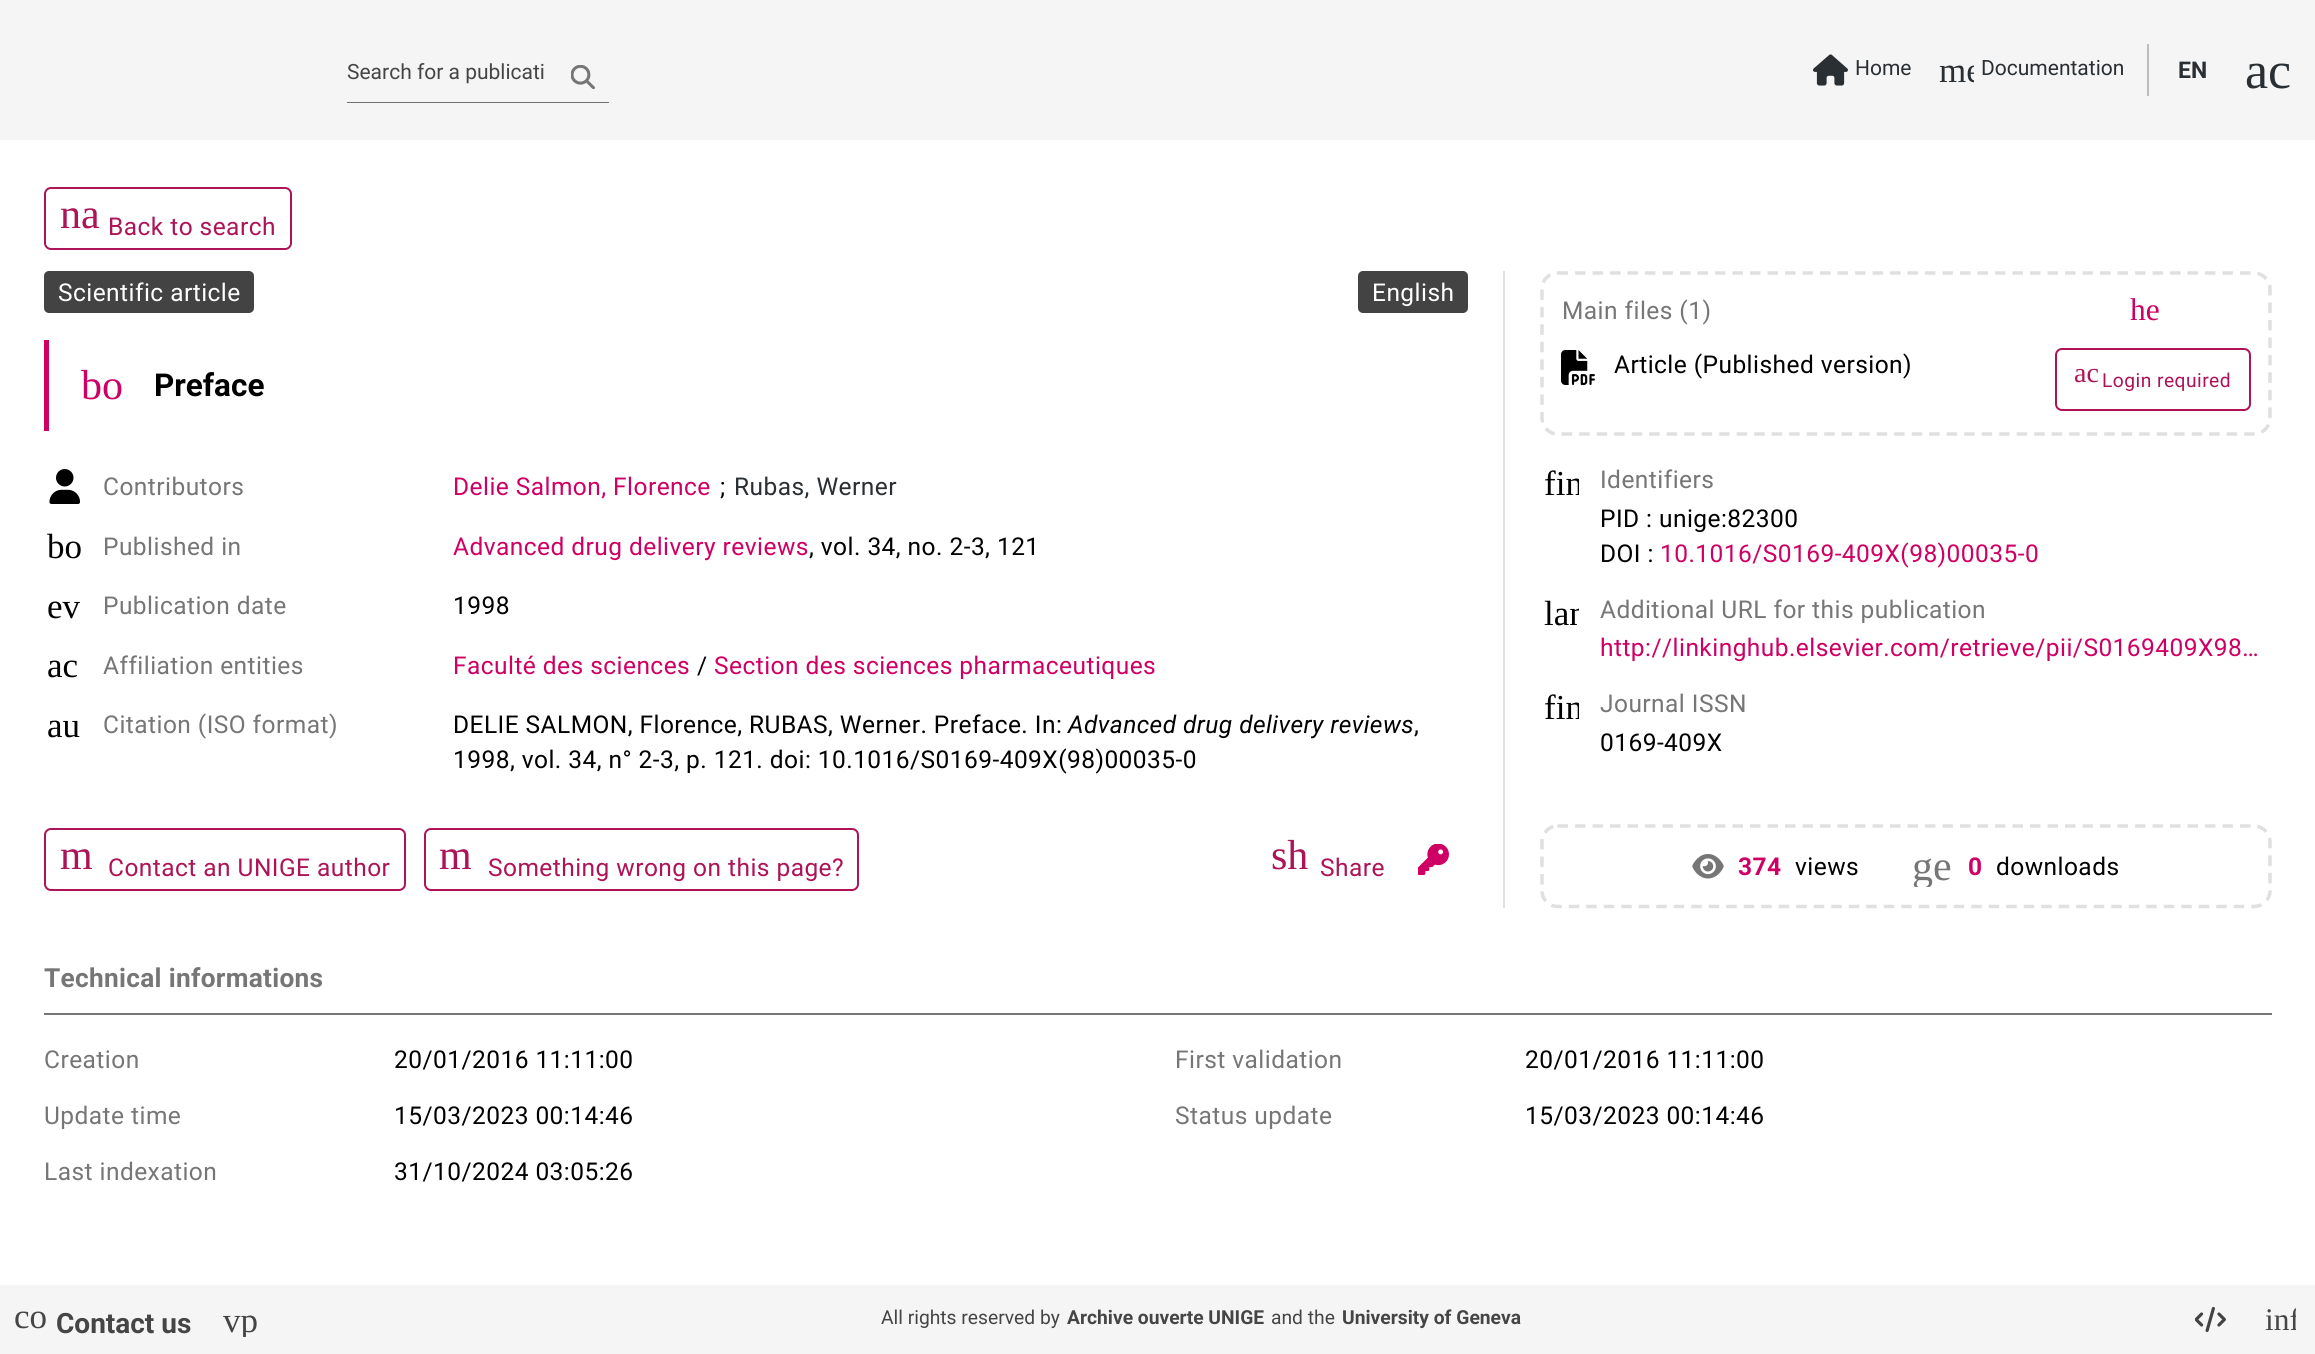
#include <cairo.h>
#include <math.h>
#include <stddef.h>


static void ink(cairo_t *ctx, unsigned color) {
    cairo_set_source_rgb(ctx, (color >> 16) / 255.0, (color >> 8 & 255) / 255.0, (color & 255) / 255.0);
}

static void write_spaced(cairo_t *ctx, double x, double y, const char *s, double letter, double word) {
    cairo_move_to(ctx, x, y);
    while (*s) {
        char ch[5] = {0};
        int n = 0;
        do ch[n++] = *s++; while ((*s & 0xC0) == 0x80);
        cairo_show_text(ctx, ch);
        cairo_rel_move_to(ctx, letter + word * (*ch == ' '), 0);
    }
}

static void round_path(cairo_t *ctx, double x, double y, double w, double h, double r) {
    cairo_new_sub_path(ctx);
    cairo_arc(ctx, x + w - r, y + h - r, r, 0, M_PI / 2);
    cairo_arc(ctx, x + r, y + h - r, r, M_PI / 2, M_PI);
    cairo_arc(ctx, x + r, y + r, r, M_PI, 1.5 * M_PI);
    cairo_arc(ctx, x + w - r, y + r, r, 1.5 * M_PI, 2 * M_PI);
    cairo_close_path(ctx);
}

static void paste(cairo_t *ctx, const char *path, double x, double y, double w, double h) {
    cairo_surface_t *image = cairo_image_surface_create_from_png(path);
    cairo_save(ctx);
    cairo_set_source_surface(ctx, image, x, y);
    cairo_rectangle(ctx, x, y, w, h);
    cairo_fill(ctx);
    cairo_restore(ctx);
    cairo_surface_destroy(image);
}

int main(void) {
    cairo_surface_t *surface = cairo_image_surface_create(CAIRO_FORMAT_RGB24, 2315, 1354);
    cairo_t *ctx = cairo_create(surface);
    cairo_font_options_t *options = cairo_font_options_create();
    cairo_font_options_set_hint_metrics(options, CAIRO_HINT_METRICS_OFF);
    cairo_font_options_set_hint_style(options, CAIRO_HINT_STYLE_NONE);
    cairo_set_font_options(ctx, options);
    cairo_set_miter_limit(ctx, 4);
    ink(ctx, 0xFFFFFF);
    cairo_paint(ctx);
    ink(ctx, 0xF5F5F5);
    cairo_rectangle(ctx, 0, 0, 2315, 140);
    cairo_fill(ctx);
    cairo_select_font_face(ctx, "Roboto", CAIRO_FONT_SLANT_NORMAL, CAIRO_FONT_WEIGHT_NORMAL);
    cairo_set_font_size(ctx, 21);
    ink(ctx, 0x454545);
    cairo_move_to(ctx, 347, 79);
    cairo_show_text(ctx, "Search for a publicati");
    paste(ctx, "media/1.png", 571, 65, 24, 24);
    ink(ctx, 0x717171);
    cairo_rectangle(ctx, 347, 102, 262, 1);
    cairo_fill(ctx);
    paste(ctx, "media/2.png", 1813, 54, 35, 32);
    ink(ctx, 0x292F33);
    cairo_move_to(ctx, 1855, 75);
    cairo_show_text(ctx, "Home");
    cairo_save(ctx);
    cairo_rectangle(ctx, 1939, 53, 35, 35);
    cairo_clip(ctx);
    cairo_select_font_face(ctx, "Liberation Serif", CAIRO_FONT_SLANT_NORMAL, CAIRO_FONT_WEIGHT_NORMAL);
    cairo_set_font_size(ctx, 35);
    cairo_move_to(ctx, 1939, 82);
    cairo_show_text(ctx, "me");
    cairo_restore(ctx);
    cairo_move_to(ctx, 1981, 75);
    cairo_show_text(ctx, "Documentation");
    ink(ctx, 0xBDBDBD);
    cairo_rectangle(ctx, 2147, 44, 2, 52);
    cairo_fill(ctx);
    cairo_select_font_face(ctx, "Roboto", CAIRO_FONT_SLANT_NORMAL, CAIRO_FONT_WEIGHT_BOLD);
    cairo_set_font_size(ctx, 23);
    ink(ctx, 0x292F33);
    cairo_move_to(ctx, 2178, 78);
    cairo_show_text(ctx, "EN");
    cairo_select_font_face(ctx, "Liberation Serif", CAIRO_FONT_SLANT_NORMAL, CAIRO_FONT_WEIGHT_NORMAL);
    cairo_set_font_size(ctx, 52);
    cairo_move_to(ctx, 2245, 88);
    cairo_show_text(ctx, "ac");
    round_path(ctx, 45, 188, 246, 61, 6);
    ink(ctx, 0xAD1457);
    cairo_stroke(ctx);
    cairo_set_font_size(ctx, 42);
    cairo_move_to(ctx, 60, 228);
    cairo_show_text(ctx, "na");
    cairo_select_font_face(ctx, "Roboto", CAIRO_FONT_SLANT_NORMAL, CAIRO_FONT_WEIGHT_NORMAL);
    cairo_set_font_size(ctx, 24.5);
    write_spaced(ctx, 108, 235, "Back to search", 0.45, 0);
    ink(ctx, 0xE0E0E0);
    cairo_rectangle(ctx, 1503, 271, 2, 637);
    cairo_fill(ctx);
    ink(ctx, 0x434343);
    round_path(ctx, 44, 271, 210, 42, 5);
    cairo_fill(ctx);
    ink(ctx, 0xFFFFFF);
    write_spaced(ctx, 58, 301, "Scientific article", 0.45, 0);
    ink(ctx, 0x434343);
    round_path(ctx, 1358, 271, 110, 42, 5);
    cairo_fill(ctx);
    ink(ctx, 0xFFFFFF);
    write_spaced(ctx, 1372, 301, "English", 0.45, 0);
    ink(ctx, 0xCF0063);
    cairo_rectangle(ctx, 44, 340, 5, 91);
    cairo_fill(ctx);
    cairo_select_font_face(ctx, "Liberation Serif", CAIRO_FONT_SLANT_NORMAL, CAIRO_FONT_WEIGHT_NORMAL);
    cairo_set_font_size(ctx, 42);
    cairo_move_to(ctx, 81, 399);
    cairo_show_text(ctx, "bo");
    cairo_select_font_face(ctx, "Roboto", CAIRO_FONT_SLANT_NORMAL, CAIRO_FONT_WEIGHT_BOLD);
    cairo_set_font_size(ctx, 31.5);
    ink(ctx, 0x000000);
    cairo_move_to(ctx, 154, 396);
    cairo_show_text(ctx, "Preface");
    paste(ctx, "media/3.png", 49, 469, 32, 35);
    cairo_select_font_face(ctx, "Roboto", CAIRO_FONT_SLANT_NORMAL, CAIRO_FONT_WEIGHT_NORMAL);
    cairo_set_font_size(ctx, 24.5);
    ink(ctx, 0x767676);
    write_spaced(ctx, 103, 495, "Contributors", 0.45, 0);
    ink(ctx, 0xCF0063);
    write_spaced(ctx, 453, 495, "Delie Salmon, Florence", 0.45, 0);
    ink(ctx, 0x000000);
    write_spaced(ctx, 720, 495, ";", 0.45, 0);
    ink(ctx, 0x292F33);
    write_spaced(ctx, 734, 495, "Rubas, Werner", 0.45, 0);
    cairo_select_font_face(ctx, "Liberation Serif", CAIRO_FONT_SLANT_NORMAL, CAIRO_FONT_WEIGHT_NORMAL);
    cairo_set_font_size(ctx, 35);
    ink(ctx, 0x000000);
    cairo_move_to(ctx, 47, 558);
    cairo_show_text(ctx, "bo");
    cairo_select_font_face(ctx, "Roboto", CAIRO_FONT_SLANT_NORMAL, CAIRO_FONT_WEIGHT_NORMAL);
    cairo_set_font_size(ctx, 24.5);
    ink(ctx, 0x767676);
    write_spaced(ctx, 103, 555, "Published in", 0.45, 0);
    ink(ctx, 0xCF0063);
    write_spaced(ctx, 453, 555, "Advanced drug delivery reviews", 0.45, 0);
    ink(ctx, 0x000000);
    write_spaced(ctx, 809, 555, ", vol. 34, no. 2-3, 121", 0.45, 0);
    cairo_select_font_face(ctx, "Liberation Serif", CAIRO_FONT_SLANT_NORMAL, CAIRO_FONT_WEIGHT_NORMAL);
    cairo_set_font_size(ctx, 35);
    cairo_move_to(ctx, 47, 618);
    cairo_show_text(ctx, "ev");
    cairo_select_font_face(ctx, "Roboto", CAIRO_FONT_SLANT_NORMAL, CAIRO_FONT_WEIGHT_NORMAL);
    cairo_set_font_size(ctx, 24.5);
    ink(ctx, 0x767676);
    write_spaced(ctx, 103, 614, "Publication date", 0.45, 0);
    ink(ctx, 0x000000);
    write_spaced(ctx, 453, 614, "1998", 0.45, 0);
    cairo_select_font_face(ctx, "Liberation Serif", CAIRO_FONT_SLANT_NORMAL, CAIRO_FONT_WEIGHT_NORMAL);
    cairo_set_font_size(ctx, 35);
    cairo_move_to(ctx, 47, 677);
    cairo_show_text(ctx, "ac");
    cairo_select_font_face(ctx, "Roboto", CAIRO_FONT_SLANT_NORMAL, CAIRO_FONT_WEIGHT_NORMAL);
    cairo_set_font_size(ctx, 24.5);
    ink(ctx, 0x767676);
    write_spaced(ctx, 103, 674, "Affiliation entities", 0.45, 0);
    ink(ctx, 0xCF0063);
    write_spaced(ctx, 453, 674, "Faculté des sciences", 0.45, 0);
    ink(ctx, 0x000000);
    write_spaced(ctx, 697, 674, "/", 0.45, 0);
    ink(ctx, 0xCF0063);
    write_spaced(ctx, 714, 674, "Section des sciences pharmaceutiques", 0.45, 0);
    cairo_select_font_face(ctx, "Liberation Serif", CAIRO_FONT_SLANT_NORMAL, CAIRO_FONT_WEIGHT_NORMAL);
    cairo_set_font_size(ctx, 35);
    ink(ctx, 0x000000);
    cairo_move_to(ctx, 47, 737);
    cairo_show_text(ctx, "au");
    cairo_select_font_face(ctx, "Roboto", CAIRO_FONT_SLANT_NORMAL, CAIRO_FONT_WEIGHT_NORMAL);
    cairo_set_font_size(ctx, 24.5);
    ink(ctx, 0x767676);
    write_spaced(ctx, 103, 733, "Citation (ISO format)", 0.45, 0);
    ink(ctx, 0x000000);
    write_spaced(ctx, 453, 733, "DELIE SALMON, Florence, RUBAS, Werner. Preface. In:", 0.45, 0);
    cairo_select_font_face(ctx, "Roboto", CAIRO_FONT_SLANT_ITALIC, CAIRO_FONT_WEIGHT_NORMAL);
    write_spaced(ctx, 1068, 733, "Advanced drug delivery reviews", 0.45, 0);
    cairo_select_font_face(ctx, "Roboto", CAIRO_FONT_SLANT_NORMAL, CAIRO_FONT_WEIGHT_NORMAL);
    write_spaced(ctx, 1414, 733, ",", 0.45, 0);
    write_spaced(ctx, 453, 768, "1998, vol. 34, n° 2-3, p. 121. doi: 10.1016/S0169-409X(98)00035-0", 0.45, 0);
    round_path(ctx, 45, 829, 360, 61, 6);
    ink(ctx, 0xAD1457);
    cairo_stroke(ctx);
    cairo_select_font_face(ctx, "Liberation Serif", CAIRO_FONT_SLANT_NORMAL, CAIRO_FONT_WEIGHT_NORMAL);
    cairo_set_font_size(ctx, 42);
    cairo_move_to(ctx, 60, 869);
    cairo_show_text(ctx, "m");
    cairo_select_font_face(ctx, "Roboto", CAIRO_FONT_SLANT_NORMAL, CAIRO_FONT_WEIGHT_NORMAL);
    cairo_set_font_size(ctx, 24.5);
    write_spaced(ctx, 108, 876, "Contact an UNIGE author", 0.45, 0);
    round_path(ctx, 425, 829, 433, 61, 6);
    cairo_stroke(ctx);
    cairo_select_font_face(ctx, "Liberation Serif", CAIRO_FONT_SLANT_NORMAL, CAIRO_FONT_WEIGHT_NORMAL);
    cairo_set_font_size(ctx, 42);
    cairo_move_to(ctx, 439, 869);
    cairo_show_text(ctx, "m");
    cairo_select_font_face(ctx, "Roboto", CAIRO_FONT_SLANT_NORMAL, CAIRO_FONT_WEIGHT_NORMAL);
    cairo_set_font_size(ctx, 24.5);
    write_spaced(ctx, 488, 876, "Something wrong on this page?", 0.45, 0);
    cairo_select_font_face(ctx, "Liberation Serif", CAIRO_FONT_SLANT_NORMAL, CAIRO_FONT_WEIGHT_NORMAL);
    cairo_set_font_size(ctx, 42);
    cairo_move_to(ctx, 1271, 869);
    cairo_show_text(ctx, "sh");
    cairo_select_font_face(ctx, "Roboto", CAIRO_FONT_SLANT_NORMAL, CAIRO_FONT_WEIGHT_NORMAL);
    cairo_set_font_size(ctx, 24.5);
    write_spaced(ctx, 1320, 876, "Share", 0.45, 0);
    paste(ctx, "media/4.png", 1418, 844, 31, 31);
    cairo_new_path(ctx);
    cairo_move_to(ctx, 1557.5, 273);
    cairo_line_to(ctx, 2254, 273);
    cairo_curve_to(ctx, 2262.5, 273, 2270, 280, 2270, 289);
    cairo_line_to(ctx, 2270, 418);
    cairo_curve_to(ctx, 2270, 427, 2262.5, 434, 2254, 434);
    cairo_line_to(ctx, 1557.5, 434);
    cairo_curve_to(ctx, 1549, 434, 1542, 427, 1542, 418);
    cairo_line_to(ctx, 1542, 289);
    cairo_curve_to(ctx, 1542, 280, 1549, 273, 1557.5, 273);
    cairo_close_path(ctx);
    ink(ctx, 0xE0E0E0);
    cairo_set_line_width(ctx, 3.5);
    cairo_set_dash(ctx, (double[]){10.5, 7}, 2, 0);
    cairo_stroke(ctx);
    ink(ctx, 0x767676);
    write_spaced(ctx, 1562, 319, "Main files (1)", 0.45, 0);
    cairo_select_font_face(ctx, "Liberation Serif", CAIRO_FONT_SLANT_NORMAL, CAIRO_FONT_WEIGHT_NORMAL);
    cairo_set_font_size(ctx, 31.5);
    ink(ctx, 0xCF0063);
    cairo_move_to(ctx, 2130, 320);
    cairo_show_text(ctx, "he");
    paste(ctx, "media/5.png", 1561, 350, 34, 35);
    cairo_select_font_face(ctx, "Roboto", CAIRO_FONT_SLANT_NORMAL, CAIRO_FONT_WEIGHT_NORMAL);
    cairo_set_font_size(ctx, 24.5);
    ink(ctx, 0x000000);
    write_spaced(ctx, 1614, 373, "Article (Published version)", 0.45, 0);
    round_path(ctx, 2056, 349, 194, 61, 6);
    ink(ctx, 0xAD1457);
    cairo_set_line_width(ctx, 2);
    cairo_set_dash(ctx, NULL, 0, 0);
    cairo_stroke(ctx);
    cairo_select_font_face(ctx, "Liberation Serif", CAIRO_FONT_SLANT_NORMAL, CAIRO_FONT_WEIGHT_NORMAL);
    cairo_set_font_size(ctx, 28);
    cairo_move_to(ctx, 2074, 382);
    cairo_show_text(ctx, "ac");
    cairo_select_font_face(ctx, "Roboto", CAIRO_FONT_SLANT_NORMAL, CAIRO_FONT_WEIGHT_NORMAL);
    cairo_set_font_size(ctx, 19.25);
    write_spaced(ctx, 2102, 387, "Login required", 0.45, 0);
    cairo_save(ctx);
    cairo_rectangle(ctx, 1544, 466, 35, 35);
    cairo_clip(ctx);
    cairo_select_font_face(ctx, "Liberation Serif", CAIRO_FONT_SLANT_NORMAL, CAIRO_FONT_WEIGHT_NORMAL);
    cairo_set_font_size(ctx, 35);
    ink(ctx, 0x000000);
    cairo_move_to(ctx, 1544, 495);
    cairo_show_text(ctx, "fin");
    cairo_restore(ctx);
    cairo_set_font_size(ctx, 24.5);
    ink(ctx, 0x767676);
    write_spaced(ctx, 1600, 488, "Identifiers", 0.45, 0);
    ink(ctx, 0x000000);
    write_spaced(ctx, 1600, 527, "PID : unige:82300", 0.45, 0);
    write_spaced(ctx, 1600, 562, "DOI :", 0.45, 0);
    ink(ctx, 0xCF0063);
    write_spaced(ctx, 1660, 562, "10.1016/S0169-409X(98)00035-0", 0.45, 0);
    cairo_save(ctx);
    cairo_rectangle(ctx, 1544, 595, 35, 35);
    cairo_clip(ctx);
    cairo_select_font_face(ctx, "Liberation Serif", CAIRO_FONT_SLANT_NORMAL, CAIRO_FONT_WEIGHT_NORMAL);
    cairo_set_font_size(ctx, 35);
    ink(ctx, 0x000000);
    cairo_move_to(ctx, 1544, 625);
    cairo_show_text(ctx, "lan");
    cairo_restore(ctx);
    ink(ctx, 0x767676);
    write_spaced(ctx, 1600, 618, "Additional URL for this publication", 0.45, 0);
    ink(ctx, 0xCF0063);
    write_spaced(ctx, 1600, 656, "http://linkinghub.elsevier.com/retrieve/pii/S0169409X98…", 0.45, 0);
    cairo_save(ctx);
    cairo_rectangle(ctx, 1544, 690, 35, 35);
    cairo_clip(ctx);
    cairo_select_font_face(ctx, "Liberation Serif", CAIRO_FONT_SLANT_NORMAL, CAIRO_FONT_WEIGHT_NORMAL);
    cairo_set_font_size(ctx, 35);
    ink(ctx, 0x000000);
    cairo_move_to(ctx, 1544, 719);
    cairo_show_text(ctx, "fin");
    cairo_restore(ctx);
    ink(ctx, 0x767676);
    write_spaced(ctx, 1600, 712, "Journal ISSN", 0.45, 0);
    ink(ctx, 0x000000);
    write_spaced(ctx, 1600, 751, "0169-409X", 0.45, 0);
    cairo_new_path(ctx);
    cairo_move_to(ctx, 1557.5, 826);
    cairo_line_to(ctx, 2254, 826);
    cairo_curve_to(ctx, 2262.5, 826, 2270, 833, 2270, 842);
    cairo_line_to(ctx, 2270, 891);
    cairo_curve_to(ctx, 2270, 899.5, 2262.5, 906.5, 2254, 906.5);
    cairo_line_to(ctx, 1557.5, 906.5);
    cairo_curve_to(ctx, 1549, 906.5, 1542, 899.5, 1542, 891);
    cairo_line_to(ctx, 1542, 842);
    cairo_curve_to(ctx, 1542, 833, 1549, 826, 1557.5, 826);
    cairo_close_path(ctx);
    ink(ctx, 0xE0E0E0);
    cairo_set_line_width(ctx, 3.5);
    cairo_set_dash(ctx, (double[]){10.5, 7}, 2, 0);
    cairo_stroke(ctx);
    paste(ctx, "media/6.png", 1692, 854, 32, 25);
    cairo_select_font_face(ctx, "Roboto", CAIRO_FONT_SLANT_NORMAL, CAIRO_FONT_WEIGHT_BOLD);
    ink(ctx, 0xCF0063);
    write_spaced(ctx, 1738, 875, "374", 0.45, 0);
    cairo_select_font_face(ctx, "Roboto", CAIRO_FONT_SLANT_NORMAL, CAIRO_FONT_WEIGHT_NORMAL);
    ink(ctx, 0x000000);
    write_spaced(ctx, 1795, 875, "views", 0.45, 0);
    cairo_save(ctx);
    cairo_rectangle(ctx, 1911, 845, 42, 42);
    cairo_clip(ctx);
    cairo_select_font_face(ctx, "Liberation Serif", CAIRO_FONT_SLANT_NORMAL, CAIRO_FONT_WEIGHT_NORMAL);
    cairo_set_font_size(ctx, 42);
    ink(ctx, 0x767676);
    cairo_move_to(ctx, 1912, 880);
    cairo_show_text(ctx, "ge");
    cairo_restore(ctx);
    cairo_select_font_face(ctx, "Roboto", CAIRO_FONT_SLANT_NORMAL, CAIRO_FONT_WEIGHT_BOLD);
    ink(ctx, 0xCF0063);
    write_spaced(ctx, 1968, 875, "0", 0.45, 0);
    cairo_select_font_face(ctx, "Roboto", CAIRO_FONT_SLANT_NORMAL, CAIRO_FONT_WEIGHT_NORMAL);
    ink(ctx, 0x000000);
    write_spaced(ctx, 1996, 875, "downloads", 0.45, 0);
    ink(ctx, 0x767676);
    cairo_rectangle(ctx, 44, 1013, 2228, 2);
    cairo_fill(ctx);
    cairo_select_font_face(ctx, "Roboto", CAIRO_FONT_SLANT_NORMAL, CAIRO_FONT_WEIGHT_BOLD);
    cairo_set_font_size(ctx, 26.25);
    write_spaced(ctx, 44, 987, "Technical informations", 0.3, 0);
    cairo_select_font_face(ctx, "Roboto", CAIRO_FONT_SLANT_NORMAL, CAIRO_FONT_WEIGHT_NORMAL);
    cairo_set_font_size(ctx, 24.5);
    write_spaced(ctx, 44, 1068, "Creation", 0.45, 0);
    ink(ctx, 0x000000);
    write_spaced(ctx, 394, 1068, "20/01/2016 11:11:00", 0.45, 0);
    ink(ctx, 0x767676);
    write_spaced(ctx, 1175, 1068, "First validation", 0.45, 0);
    ink(ctx, 0x000000);
    write_spaced(ctx, 1525, 1068, "20/01/2016 11:11:00", 0.45, 0);
    ink(ctx, 0x767676);
    write_spaced(ctx, 44, 1124, "Update time", 0.45, 0);
    ink(ctx, 0x000000);
    write_spaced(ctx, 394, 1124, "15/03/2023 00:14:46", 0.45, 0);
    ink(ctx, 0x767676);
    write_spaced(ctx, 1175, 1124, "Status update", 0.45, 0);
    ink(ctx, 0x000000);
    write_spaced(ctx, 1525, 1124, "15/03/2023 00:14:46", 0.45, 0);
    ink(ctx, 0x767676);
    write_spaced(ctx, 44, 1180, "Last indexation", 0.45, 0);
    ink(ctx, 0x000000);
    write_spaced(ctx, 394, 1180, "31/10/2024 03:05:26", 0.45, 0);
    ink(ctx, 0xF5F5F5);
    cairo_rectangle(ctx, 0, 1285, 2315, 69);
    cairo_fill(ctx);
    cairo_select_font_face(ctx, "Liberation Serif", CAIRO_FONT_SLANT_NORMAL, CAIRO_FONT_WEIGHT_NORMAL);
    cairo_set_font_size(ctx, 35);
    ink(ctx, 0x454545);
    cairo_move_to(ctx, 14, 1328);
    cairo_show_text(ctx, "co");
    cairo_select_font_face(ctx, "Roboto", CAIRO_FONT_SLANT_NORMAL, CAIRO_FONT_WEIGHT_BOLD);
    cairo_set_font_size(ctx, 28);
    cairo_move_to(ctx, 56, 1333);
    cairo_show_text(ctx, "Contact us");
    cairo_save(ctx);
    cairo_rectangle(ctx, 222, 1302, 35, 35);
    cairo_clip(ctx);
    cairo_select_font_face(ctx, "Liberation Serif", CAIRO_FONT_SLANT_NORMAL, CAIRO_FONT_WEIGHT_NORMAL);
    cairo_set_font_size(ctx, 35);
    cairo_move_to(ctx, 223, 1332);
    cairo_show_text(ctx, "vp");
    cairo_restore(ctx);
    cairo_select_font_face(ctx, "Roboto", CAIRO_FONT_SLANT_NORMAL, CAIRO_FONT_WEIGHT_NORMAL);
    cairo_set_font_size(ctx, 19.25);
    cairo_move_to(ctx, 881, 1324);
    cairo_show_text(ctx, "All rights reserved by");
    cairo_select_font_face(ctx, "Roboto", CAIRO_FONT_SLANT_NORMAL, CAIRO_FONT_WEIGHT_BOLD);
    cairo_move_to(ctx, 1067, 1324);
    cairo_show_text(ctx, "Archive ouverte UNIGE");
    cairo_select_font_face(ctx, "Roboto", CAIRO_FONT_SLANT_NORMAL, CAIRO_FONT_WEIGHT_NORMAL);
    cairo_move_to(ctx, 1271, 1324);
    cairo_show_text(ctx, "and the");
    cairo_select_font_face(ctx, "Roboto", CAIRO_FONT_SLANT_NORMAL, CAIRO_FONT_WEIGHT_BOLD);
    cairo_move_to(ctx, 1342, 1324);
    cairo_show_text(ctx, "University of Geneva");
    paste(ctx, "media/7.png", 2195, 1306, 31, 27);
    cairo_save(ctx);
    cairo_rectangle(ctx, 2265, 1304, 31, 31);
    cairo_clip(ctx);
    cairo_select_font_face(ctx, "Liberation Serif", CAIRO_FONT_SLANT_NORMAL, CAIRO_FONT_WEIGHT_NORMAL);
    cairo_set_font_size(ctx, 31.5);
    cairo_move_to(ctx, 2265, 1330);
    cairo_show_text(ctx, "inf");
    cairo_restore(ctx);
    cairo_surface_write_to_png(surface, "image.png");
    cairo_font_options_destroy(options);
    cairo_destroy(ctx);
    cairo_surface_destroy(surface);
    return 0;
}
